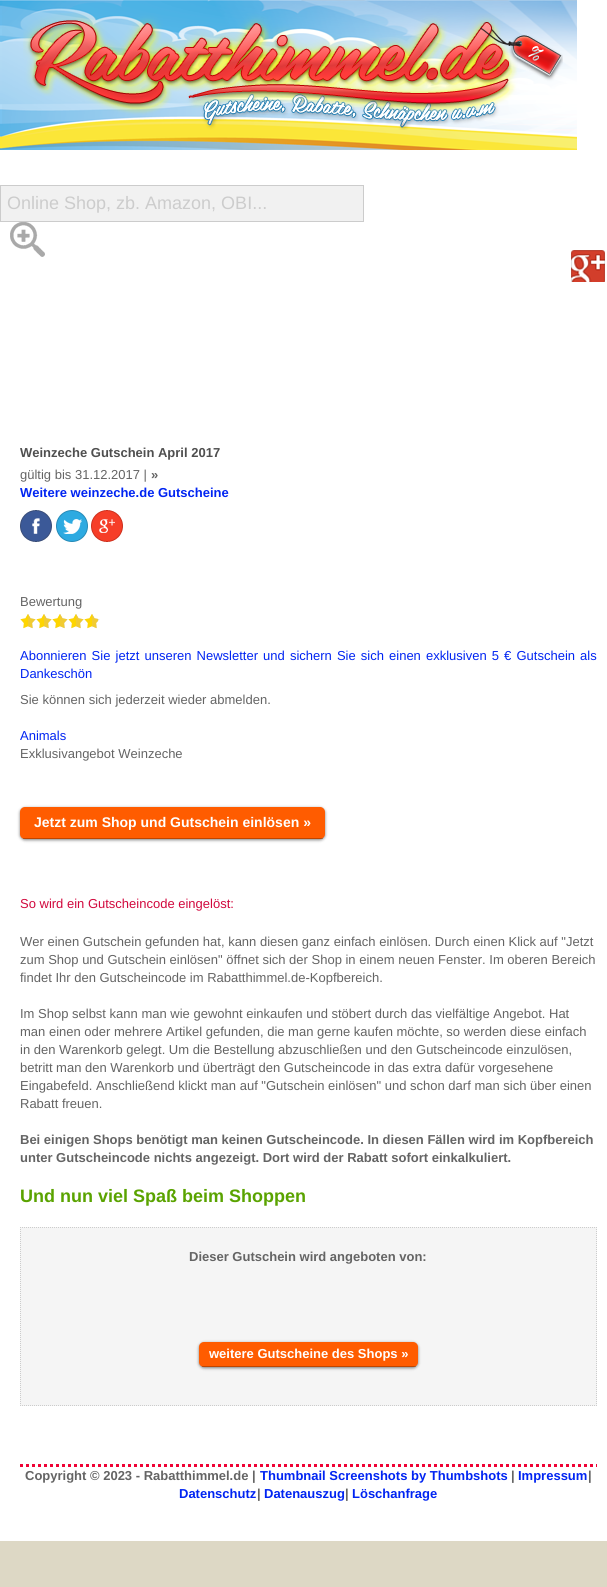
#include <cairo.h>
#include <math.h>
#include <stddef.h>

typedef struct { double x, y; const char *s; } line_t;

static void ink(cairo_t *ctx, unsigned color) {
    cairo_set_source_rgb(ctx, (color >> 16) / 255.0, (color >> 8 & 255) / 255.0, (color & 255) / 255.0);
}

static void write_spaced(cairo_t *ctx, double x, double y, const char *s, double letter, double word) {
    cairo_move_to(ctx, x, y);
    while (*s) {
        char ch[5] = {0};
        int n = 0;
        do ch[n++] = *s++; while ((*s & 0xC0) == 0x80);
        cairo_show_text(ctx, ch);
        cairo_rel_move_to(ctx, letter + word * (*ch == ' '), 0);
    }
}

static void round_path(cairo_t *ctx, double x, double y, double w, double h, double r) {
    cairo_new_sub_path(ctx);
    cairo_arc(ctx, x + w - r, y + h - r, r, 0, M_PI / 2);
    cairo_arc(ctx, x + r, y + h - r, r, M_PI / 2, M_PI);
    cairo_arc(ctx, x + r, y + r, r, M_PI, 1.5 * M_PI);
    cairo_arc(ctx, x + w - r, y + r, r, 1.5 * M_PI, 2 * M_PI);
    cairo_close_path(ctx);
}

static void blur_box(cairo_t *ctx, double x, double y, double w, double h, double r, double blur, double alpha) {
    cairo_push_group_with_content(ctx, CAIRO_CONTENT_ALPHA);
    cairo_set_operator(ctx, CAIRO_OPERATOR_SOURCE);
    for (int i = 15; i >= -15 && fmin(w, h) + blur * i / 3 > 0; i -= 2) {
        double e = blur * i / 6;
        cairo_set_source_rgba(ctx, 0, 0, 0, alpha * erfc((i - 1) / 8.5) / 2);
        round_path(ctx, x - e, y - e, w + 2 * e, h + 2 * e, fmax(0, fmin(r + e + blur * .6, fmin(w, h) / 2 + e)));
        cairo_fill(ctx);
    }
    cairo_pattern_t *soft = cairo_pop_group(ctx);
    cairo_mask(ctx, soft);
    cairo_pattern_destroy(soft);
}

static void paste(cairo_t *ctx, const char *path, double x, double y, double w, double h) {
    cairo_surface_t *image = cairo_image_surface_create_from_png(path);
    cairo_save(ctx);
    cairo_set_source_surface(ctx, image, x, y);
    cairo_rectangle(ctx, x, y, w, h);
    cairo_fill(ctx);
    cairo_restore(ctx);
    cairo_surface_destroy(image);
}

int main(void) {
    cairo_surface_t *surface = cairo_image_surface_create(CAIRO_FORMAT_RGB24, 607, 1587);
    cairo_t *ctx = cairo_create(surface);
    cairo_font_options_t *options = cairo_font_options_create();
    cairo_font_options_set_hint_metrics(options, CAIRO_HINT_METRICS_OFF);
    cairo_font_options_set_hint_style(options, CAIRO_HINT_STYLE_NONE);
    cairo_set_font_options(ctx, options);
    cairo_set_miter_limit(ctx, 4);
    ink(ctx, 0xDDD8C5);
    cairo_paint(ctx);
    ink(ctx, 0xFFFFFF);
    cairo_rectangle(ctx, 0, 0, 607, 1541);
    cairo_fill(ctx);
    paste(ctx, "media/1.png", 0, 0, 577, 150);
    paste(ctx, "media/2.png", 23, 13, 540, 117);
    ink(ctx, 0xF1F1F1);
    cairo_rectangle(ctx, 0.5, 185.5, 363, 36);
    cairo_fill_preserve(ctx);
    ink(ctx, 0xCCCCCC);
    cairo_set_line_width(ctx, 1);
    cairo_stroke(ctx);
    cairo_select_font_face(ctx, "Liberation Sans", CAIRO_FONT_SLANT_NORMAL, CAIRO_FONT_WEIGHT_NORMAL);
    cairo_set_font_size(ctx, 18);
    cairo_move_to(ctx, 7, 209);
    cairo_show_text(ctx, "Online Shop, zb. Amazon, OBI...");
    paste(ctx, "media/3.png", 10, 222, 35, 35);
    cairo_select_font_face(ctx, "Liberation Sans", CAIRO_FONT_SLANT_NORMAL, CAIRO_FONT_WEIGHT_BOLD);
    cairo_set_font_size(ctx, 13);
    ink(ctx, 0x4F4F4F);
    cairo_move_to(ctx, 20, 457);
    cairo_show_text(ctx, "Weinzeche Gutschein April 2017");
    cairo_select_font_face(ctx, "Liberation Sans", CAIRO_FONT_SLANT_NORMAL, CAIRO_FONT_WEIGHT_NORMAL);
    ink(ctx, 0x646464);
    cairo_move_to(ctx, 20, 479);
    cairo_show_text(ctx, "gültig bis 31.12.2017 |");
    cairo_select_font_face(ctx, "Liberation Sans", CAIRO_FONT_SLANT_NORMAL, CAIRO_FONT_WEIGHT_BOLD);
    cairo_move_to(ctx, 151, 479);
    cairo_show_text(ctx, "»");
    ink(ctx, 0x0024F2);
    cairo_move_to(ctx, 20, 497);
    cairo_show_text(ctx, "Weitere weinzeche.de Gutscheine");
    paste(ctx, "media/4.png", 20, 510, 32, 32);
    paste(ctx, "media/5.png", 56, 510, 32, 32);
    paste(ctx, "media/6.png", 91, 510, 32, 32);
    cairo_select_font_face(ctx, "Liberation Sans", CAIRO_FONT_SLANT_NORMAL, CAIRO_FONT_WEIGHT_NORMAL);
    ink(ctx, 0x646464);
    cairo_move_to(ctx, 20, 606);
    cairo_show_text(ctx, "Bewertung");
    paste(ctx, "media/7.png", 20, 614, 80, 14);
    paste(ctx, "media/8.png", 20, 614, 78, 15);
    ink(ctx, 0x0024F2);
    write_spaced(ctx, 20, 660, "Abonnieren Sie jetzt unseren Newsletter und sichern Sie sich einen exklusiven 5 € Gutschein als", 0, 1.5);
    cairo_move_to(ctx, 20, 678);
    cairo_show_text(ctx, "Dankeschön");
    ink(ctx, 0x646464);
    cairo_move_to(ctx, 20, 704);
    cairo_show_text(ctx, "Sie können sich jederzeit wieder abmelden.");
    ink(ctx, 0x0024F2);
    cairo_move_to(ctx, 20, 740);
    cairo_show_text(ctx, "Animals");
    ink(ctx, 0x646464);
    cairo_move_to(ctx, 20, 758);
    cairo_show_text(ctx, "Exklusivangebot Weinzeche");
    ink(ctx, 0x000000);
    blur_box(ctx, 20, 808, 305, 32, 5, 1.5, 0.5);
    ink(ctx, 0xFF5C00);
    round_path(ctx, 20, 807, 305, 32, 5);
    cairo_fill(ctx);
    cairo_set_source_rgba(ctx, 0, 0, 0, 0.25);
    cairo_rectangle(ctx, 23, 838, 300, 1);
    cairo_fill(ctx);
    cairo_select_font_face(ctx, "Liberation Sans", CAIRO_FONT_SLANT_NORMAL, CAIRO_FONT_WEIGHT_BOLD);
    cairo_set_font_size(ctx, 14);
    ink(ctx, 0xFFFFFF);
    cairo_move_to(ctx, 34, 827);
    cairo_show_text(ctx, "Jetzt zum Shop und Gutschein einlösen »");
    cairo_select_font_face(ctx, "Liberation Sans", CAIRO_FONT_SLANT_NORMAL, CAIRO_FONT_WEIGHT_NORMAL);
    cairo_set_font_size(ctx, 13);
    ink(ctx, 0xD1083D);
    cairo_move_to(ctx, 20, 908);
    cairo_show_text(ctx, "So wird ein Gutscheincode eingelöst:");
    ink(ctx, 0x646464);
    {
        static const line_t items[] = {
            {20, 946, "Wer einen Gutschein gefunden hat, kann diesen ganz einfach einlösen. Durch einen Klick auf \"Jetzt"},
            {20, 964, "zum Shop und Gutschein einlösen\" öffnet sich der Shop in einem neuen Fenster. Im oberen Bereich"},
            {20, 982, "findet Ihr den Gutscheincode im Rabatthimmel.de-Kopfbereich."},
            {20, 1018, "Im Shop selbst kann man wie gewohnt einkaufen und stöbert durch das vielfältige Angebot. Hat"},
            {20, 1036, "man einen oder mehrere Artikel gefunden, die man gerne kaufen möchte, so werden diese einfach"},
            {20, 1054, "in den Warenkorb gelegt. Um die Bestellung abzuschließen und den Gutscheincode einzulösen,"},
            {20, 1072, "betritt man den Warenkorb und überträgt den Gutscheincode in das extra dafür vorgesehene"},
            {20, 1090, "Eingabefeld. Anschließend klickt man auf \"Gutschein einlösen\" und schon darf man sich über einen"},
            {20, 1108, "Rabatt freuen."},
        };
        for (size_t i = 0; i < sizeof items / sizeof *items; i++) {
            cairo_move_to(ctx, items[i].x, items[i].y);
            cairo_show_text(ctx, items[i].s);
        }
    }
    cairo_select_font_face(ctx, "Liberation Sans", CAIRO_FONT_SLANT_NORMAL, CAIRO_FONT_WEIGHT_BOLD);
    cairo_move_to(ctx, 20, 1144);
    cairo_show_text(ctx, "Bei einigen Shops benötigt man keinen Gutscheincode. In diesen Fällen wird im Kopfbereich");
    cairo_move_to(ctx, 20, 1162);
    cairo_show_text(ctx, "unter Gutscheincode nichts angezeigt. Dort wird der Rabatt sofort einkalkuliert.");
    cairo_set_font_size(ctx, 18);
    ink(ctx, 0x5AA300);
    cairo_move_to(ctx, 20, 1202);
    cairo_show_text(ctx, "Und nun viel Spaß beim Shoppen");
    paste(ctx, "media/9.png", 571, 250, 34, 32);
    ink(ctx, 0xF5F5F5);
    cairo_rectangle(ctx, 20, 1227, 577, 179);
    cairo_fill(ctx);
    cairo_new_path(ctx);
    cairo_move_to(ctx, 20, 1227.5);
    cairo_line_to(ctx, 597, 1227.5);
    ink(ctx, 0xCCCCCC);
    cairo_set_dash(ctx, (double[]){1, 1}, 2, 0);
    cairo_stroke(ctx);
    cairo_new_path(ctx);
    cairo_move_to(ctx, 596.5, 1227);
    cairo_line_to(ctx, 596.5, 1406);
    cairo_stroke(ctx);
    cairo_new_path(ctx);
    cairo_move_to(ctx, 20, 1405.5);
    cairo_line_to(ctx, 597, 1405.5);
    cairo_stroke(ctx);
    cairo_new_path(ctx);
    cairo_move_to(ctx, 20.5, 1227);
    cairo_line_to(ctx, 20.5, 1406);
    cairo_stroke(ctx);
    cairo_set_font_size(ctx, 13);
    ink(ctx, 0x646464);
    cairo_move_to(ctx, 189, 1261);
    cairo_show_text(ctx, "Dieser Gutschein wird angeboten von:");
    ink(ctx, 0x000000);
    blur_box(ctx, 199, 1343, 219, 25, 5, 1.5, 0.5);
    ink(ctx, 0xFF5C00);
    round_path(ctx, 199, 1342, 219, 25, 5);
    cairo_fill(ctx);
    cairo_set_source_rgba(ctx, 0, 0, 0, 0.25);
    cairo_rectangle(ctx, 202, 1366, 214, 1);
    cairo_fill(ctx);
    ink(ctx, 0xFFFFFF);
    cairo_move_to(ctx, 209, 1358);
    cairo_show_text(ctx, "weitere Gutscheine des Shops »");
    cairo_new_path(ctx);
    cairo_move_to(ctx, 20, 1465.5);
    cairo_line_to(ctx, 597, 1465.5);
    ink(ctx, 0xEF0235);
    cairo_set_line_width(ctx, 3);
    cairo_set_dash(ctx, (double[]){3, 3}, 2, 0);
    cairo_stroke(ctx);
    ink(ctx, 0x646464);
    cairo_move_to(ctx, 25, 1480);
    cairo_show_text(ctx, "Copyright © 2023 - Rabatthimmel.de |");
    ink(ctx, 0x0024F2);
    cairo_move_to(ctx, 260, 1480);
    cairo_show_text(ctx, "Thumbnail Screenshots by Thumbshots");
    ink(ctx, 0x646464);
    cairo_move_to(ctx, 511, 1480);
    cairo_show_text(ctx, "|");
    ink(ctx, 0x0024F2);
    cairo_move_to(ctx, 518, 1480);
    cairo_show_text(ctx, "Impressum");
    ink(ctx, 0x646464);
    cairo_move_to(ctx, 588, 1480);
    cairo_show_text(ctx, "|");
    ink(ctx, 0x0024F2);
    cairo_move_to(ctx, 179, 1498);
    cairo_show_text(ctx, "Datenschutz");
    ink(ctx, 0x646464);
    cairo_move_to(ctx, 257, 1498);
    cairo_show_text(ctx, "|");
    ink(ctx, 0x0024F2);
    cairo_move_to(ctx, 264, 1498);
    cairo_show_text(ctx, "Datenauszug");
    ink(ctx, 0x646464);
    cairo_move_to(ctx, 345, 1498);
    cairo_show_text(ctx, "|");
    ink(ctx, 0x0024F2);
    cairo_move_to(ctx, 352, 1498);
    cairo_show_text(ctx, "Löschanfrage");
    cairo_surface_write_to_png(surface, "image.png");
    cairo_font_options_destroy(options);
    cairo_destroy(ctx);
    cairo_surface_destroy(surface);
    return 0;
}
